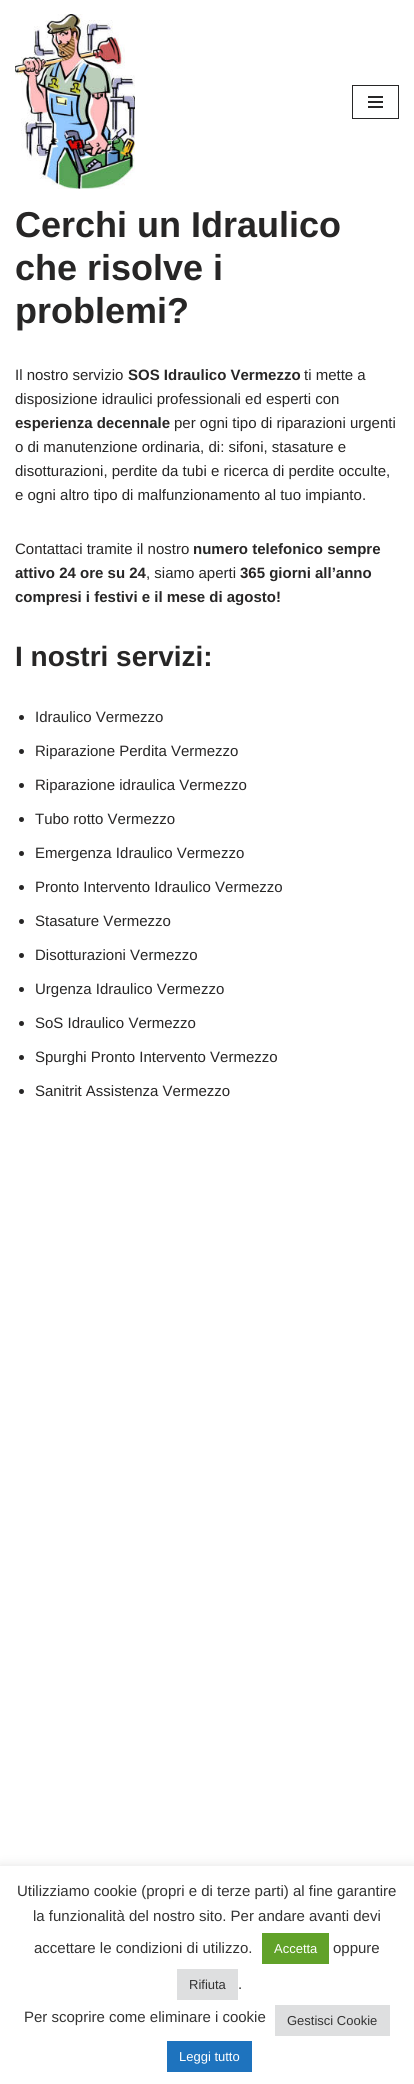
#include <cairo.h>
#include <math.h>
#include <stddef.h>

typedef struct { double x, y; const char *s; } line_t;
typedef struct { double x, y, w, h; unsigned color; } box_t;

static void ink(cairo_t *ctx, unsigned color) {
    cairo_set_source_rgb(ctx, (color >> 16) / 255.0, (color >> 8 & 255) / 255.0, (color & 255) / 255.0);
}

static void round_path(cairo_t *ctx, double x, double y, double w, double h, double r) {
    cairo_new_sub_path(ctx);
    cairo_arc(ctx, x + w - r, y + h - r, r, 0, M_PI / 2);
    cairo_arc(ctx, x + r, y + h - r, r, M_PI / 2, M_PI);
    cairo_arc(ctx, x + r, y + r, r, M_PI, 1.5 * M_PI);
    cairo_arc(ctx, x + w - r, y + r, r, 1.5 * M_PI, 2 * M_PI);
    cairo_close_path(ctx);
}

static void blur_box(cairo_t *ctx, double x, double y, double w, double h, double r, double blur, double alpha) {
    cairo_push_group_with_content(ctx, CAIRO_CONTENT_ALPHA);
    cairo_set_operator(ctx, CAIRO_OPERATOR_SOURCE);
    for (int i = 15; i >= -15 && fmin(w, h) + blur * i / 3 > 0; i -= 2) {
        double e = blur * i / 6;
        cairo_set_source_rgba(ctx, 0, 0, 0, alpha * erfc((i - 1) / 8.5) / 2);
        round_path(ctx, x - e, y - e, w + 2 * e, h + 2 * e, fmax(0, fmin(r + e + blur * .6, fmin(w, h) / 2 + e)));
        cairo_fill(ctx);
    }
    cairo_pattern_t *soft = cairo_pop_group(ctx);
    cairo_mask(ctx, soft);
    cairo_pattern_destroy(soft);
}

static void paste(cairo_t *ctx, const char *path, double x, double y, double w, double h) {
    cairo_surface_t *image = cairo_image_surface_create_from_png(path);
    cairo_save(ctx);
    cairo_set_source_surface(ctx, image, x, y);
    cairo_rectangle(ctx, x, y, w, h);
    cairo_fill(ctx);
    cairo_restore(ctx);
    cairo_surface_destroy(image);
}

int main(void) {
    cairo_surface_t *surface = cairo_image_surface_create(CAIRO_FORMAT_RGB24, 414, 2084);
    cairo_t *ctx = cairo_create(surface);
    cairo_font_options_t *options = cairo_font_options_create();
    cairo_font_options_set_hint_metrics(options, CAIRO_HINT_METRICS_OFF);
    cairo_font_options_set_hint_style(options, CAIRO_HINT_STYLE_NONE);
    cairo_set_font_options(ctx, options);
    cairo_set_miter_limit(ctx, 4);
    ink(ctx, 0xFFFFFF);
    cairo_paint(ctx);
    paste(ctx, "media/1.png", 15, 14, 120, 175);
    cairo_rectangle(ctx, 352.5, 85.5, 46, 33);
    ink(ctx, 0x272626);
    cairo_set_line_width(ctx, 1);
    cairo_stroke(ctx);
    {
        static const box_t items[] = {
            {368, 96, 15, 2, 0x272626},
            {368, 101, 15, 2, 0x272626},
            {368, 106, 15, 2, 0x272626},
        };
        for (size_t i = 0; i < sizeof items / sizeof *items; i++) {
            ink(ctx, items[i].color);
            cairo_rectangle(ctx, items[i].x, items[i].y, items[i].w, items[i].h);
            cairo_fill(ctx);
        }
    }
    cairo_select_font_face(ctx, "Liberation Sans", CAIRO_FONT_SLANT_NORMAL, CAIRO_FONT_WEIGHT_BOLD);
    cairo_set_font_size(ctx, 36);
    {
        static const line_t items[] = {
            {15, 237, "Cerchi un Idraulico"},
            {15, 280, "che risolve i"},
            {15, 323, "problemi?"},
        };
        for (size_t i = 0; i < sizeof items / sizeof *items; i++) {
            cairo_move_to(ctx, items[i].x, items[i].y);
            cairo_show_text(ctx, items[i].s);
        }
    }
    cairo_select_font_face(ctx, "Liberation Sans", CAIRO_FONT_SLANT_NORMAL, CAIRO_FONT_WEIGHT_NORMAL);
    cairo_set_font_size(ctx, 15);
    cairo_move_to(ctx, 15, 380);
    cairo_show_text(ctx, "Il nostro servizio");
    cairo_select_font_face(ctx, "Liberation Sans", CAIRO_FONT_SLANT_NORMAL, CAIRO_FONT_WEIGHT_BOLD);
    cairo_move_to(ctx, 128, 380);
    cairo_show_text(ctx, "SOS Idraulico Vermezzo");
    cairo_select_font_face(ctx, "Liberation Sans", CAIRO_FONT_SLANT_NORMAL, CAIRO_FONT_WEIGHT_NORMAL);
    cairo_move_to(ctx, 304, 380);
    cairo_show_text(ctx, "ti mette a");
    cairo_move_to(ctx, 15, 404);
    cairo_show_text(ctx, "disposizione idraulici professionali ed esperti con");
    cairo_select_font_face(ctx, "Liberation Sans", CAIRO_FONT_SLANT_NORMAL, CAIRO_FONT_WEIGHT_BOLD);
    cairo_move_to(ctx, 15, 428);
    cairo_show_text(ctx, "esperienza decennale");
    cairo_select_font_face(ctx, "Liberation Sans", CAIRO_FONT_SLANT_NORMAL, CAIRO_FONT_WEIGHT_NORMAL);
    {
        static const line_t items[] = {
            {174, 428, "per ogni tipo di riparazioni urgenti"},
            {15, 452, "o di manutenzione ordinaria, di: sifoni, stasature e"},
            {15, 476, "disotturazioni, perdite da tubi e ricerca di perdite occulte,"},
            {15, 500, "e ogni altro tipo di malfunzionamento al tuo impianto."},
            {15, 554, "Contattaci tramite il nostro"},
        };
        for (size_t i = 0; i < sizeof items / sizeof *items; i++) {
            cairo_move_to(ctx, items[i].x, items[i].y);
            cairo_show_text(ctx, items[i].s);
        }
    }
    cairo_select_font_face(ctx, "Liberation Sans", CAIRO_FONT_SLANT_NORMAL, CAIRO_FONT_WEIGHT_BOLD);
    cairo_move_to(ctx, 193, 554);
    cairo_show_text(ctx, "numero telefonico sempre");
    cairo_move_to(ctx, 15, 578);
    cairo_show_text(ctx, "attivo 24 ore su 24");
    cairo_select_font_face(ctx, "Liberation Sans", CAIRO_FONT_SLANT_NORMAL, CAIRO_FONT_WEIGHT_NORMAL);
    cairo_move_to(ctx, 146, 578);
    cairo_show_text(ctx, ", siamo aperti");
    cairo_select_font_face(ctx, "Liberation Sans", CAIRO_FONT_SLANT_NORMAL, CAIRO_FONT_WEIGHT_BOLD);
    cairo_move_to(ctx, 240, 578);
    cairo_show_text(ctx, "365 giorni all’anno");
    cairo_move_to(ctx, 15, 602);
    cairo_show_text(ctx, "compresi i festivi e il mese di agosto!");
    cairo_set_font_size(ctx, 28);
    cairo_move_to(ctx, 15, 666);
    cairo_show_text(ctx, "I nostri servizi:");
    cairo_new_path(ctx);
    cairo_arc(ctx, 21.5, 717.5, 2.5, 0, 2 * M_PI);
    cairo_fill(ctx);
    cairo_select_font_face(ctx, "Liberation Sans", CAIRO_FONT_SLANT_NORMAL, CAIRO_FONT_WEIGHT_NORMAL);
    cairo_set_font_size(ctx, 15);
    cairo_move_to(ctx, 35, 722);
    cairo_show_text(ctx, "Idraulico Vermezzo");
    cairo_new_path(ctx);
    cairo_arc(ctx, 21.5, 751.5, 2.5, 0, 2 * M_PI);
    cairo_fill(ctx);
    cairo_move_to(ctx, 35, 756);
    cairo_show_text(ctx, "Riparazione Perdita Vermezzo");
    cairo_new_path(ctx);
    cairo_arc(ctx, 21.5, 785.5, 2.5, 0, 2 * M_PI);
    cairo_fill(ctx);
    cairo_move_to(ctx, 35, 790);
    cairo_show_text(ctx, "Riparazione idraulica Vermezzo");
    cairo_new_path(ctx);
    cairo_arc(ctx, 21.5, 819.5, 2.5, 0, 2 * M_PI);
    cairo_fill(ctx);
    cairo_move_to(ctx, 35, 824);
    cairo_show_text(ctx, "Tubo rotto Vermezzo");
    cairo_new_path(ctx);
    cairo_arc(ctx, 21.5, 853.5, 2.5, 0, 2 * M_PI);
    cairo_fill(ctx);
    cairo_move_to(ctx, 35, 858);
    cairo_show_text(ctx, "Emergenza Idraulico Vermezzo");
    cairo_new_path(ctx);
    cairo_arc(ctx, 21.5, 887.5, 2.5, 0, 2 * M_PI);
    cairo_fill(ctx);
    cairo_move_to(ctx, 35, 892);
    cairo_show_text(ctx, "Pronto Intervento Idraulico Vermezzo");
    cairo_new_path(ctx);
    cairo_arc(ctx, 21.5, 921.5, 2.5, 0, 2 * M_PI);
    cairo_fill(ctx);
    cairo_move_to(ctx, 35, 926);
    cairo_show_text(ctx, "Stasature Vermezzo");
    cairo_new_path(ctx);
    cairo_arc(ctx, 21.5, 955.5, 2.5, 0, 2 * M_PI);
    cairo_fill(ctx);
    cairo_move_to(ctx, 35, 960);
    cairo_show_text(ctx, "Disotturazioni Vermezzo");
    cairo_new_path(ctx);
    cairo_arc(ctx, 21.5, 989.5, 2.5, 0, 2 * M_PI);
    cairo_fill(ctx);
    cairo_move_to(ctx, 35, 994);
    cairo_show_text(ctx, "Urgenza Idraulico Vermezzo");
    cairo_new_path(ctx);
    cairo_arc(ctx, 21.5, 1023.5, 2.5, 0, 2 * M_PI);
    cairo_fill(ctx);
    cairo_move_to(ctx, 35, 1028);
    cairo_show_text(ctx, "SoS Idraulico Vermezzo");
    cairo_new_path(ctx);
    cairo_arc(ctx, 21.5, 1057.5, 2.5, 0, 2 * M_PI);
    cairo_fill(ctx);
    cairo_move_to(ctx, 35, 1062);
    cairo_show_text(ctx, "Spurghi Pronto Intervento Vermezzo");
    cairo_new_path(ctx);
    cairo_arc(ctx, 21.5, 1091.5, 2.5, 0, 2 * M_PI);
    cairo_fill(ctx);
    cairo_move_to(ctx, 35, 1096);
    cairo_show_text(ctx, "Sanitrit Assistenza Vermezzo");
    ink(ctx, 0xACABAB);
    blur_box(ctx, 0, 1865, 414, 218, 0, 5, 0.3);
    ink(ctx, 0xFFFFFF);
    cairo_rectangle(ctx, 0, 1866, 414, 218);
    cairo_fill(ctx);
    ink(ctx, 0x333333);
    {
        static const line_t items[] = {
            {17, 1896, "Utilizziamo cookie (propri e di terze parti) al fine garantire"},
            {33, 1921, "la funzionalità del nostro sito. Per andare avanti devi"},
            {34, 1953, "accettare le condizioni di utilizzo."},
        };
        for (size_t i = 0; i < sizeof items / sizeof *items; i++) {
            cairo_move_to(ctx, items[i].x, items[i].y);
            cairo_show_text(ctx, items[i].s);
        }
    }
    ink(ctx, 0x61A229);
    cairo_rectangle(ctx, 262, 1933, 67, 31);
    cairo_fill(ctx);
    cairo_set_font_size(ctx, 13);
    ink(ctx, 0xFFFFFF);
    cairo_move_to(ctx, 274, 1953);
    cairo_show_text(ctx, "Accetta");
    cairo_set_font_size(ctx, 15);
    ink(ctx, 0x333333);
    cairo_move_to(ctx, 333, 1953);
    cairo_show_text(ctx, "oppure");
    ink(ctx, 0xDEDFE0);
    cairo_rectangle(ctx, 177, 1969, 61, 31);
    cairo_fill(ctx);
    cairo_set_font_size(ctx, 13);
    ink(ctx, 0x333333);
    cairo_move_to(ctx, 189, 1989);
    cairo_show_text(ctx, "Rifiuta");
    cairo_set_font_size(ctx, 15);
    cairo_move_to(ctx, 238, 1989);
    cairo_show_text(ctx, ".");
    cairo_move_to(ctx, 24, 2022);
    cairo_show_text(ctx, "Per scoprire come eliminare i cookie");
    ink(ctx, 0xDEDFE0);
    cairo_rectangle(ctx, 275, 2005, 115, 31);
    cairo_fill(ctx);
    cairo_set_font_size(ctx, 13);
    ink(ctx, 0x333333);
    cairo_move_to(ctx, 287, 2025);
    cairo_show_text(ctx, "Gestisci Cookie");
    ink(ctx, 0x1E73BE);
    cairo_rectangle(ctx, 167, 2041, 85, 31);
    cairo_fill(ctx);
    ink(ctx, 0xFFFFFF);
    cairo_move_to(ctx, 179, 2061);
    cairo_show_text(ctx, "Leggi tutto");
    cairo_surface_write_to_png(surface, "image.png");
    cairo_font_options_destroy(options);
    cairo_destroy(ctx);
    cairo_surface_destroy(surface);
    return 0;
}
